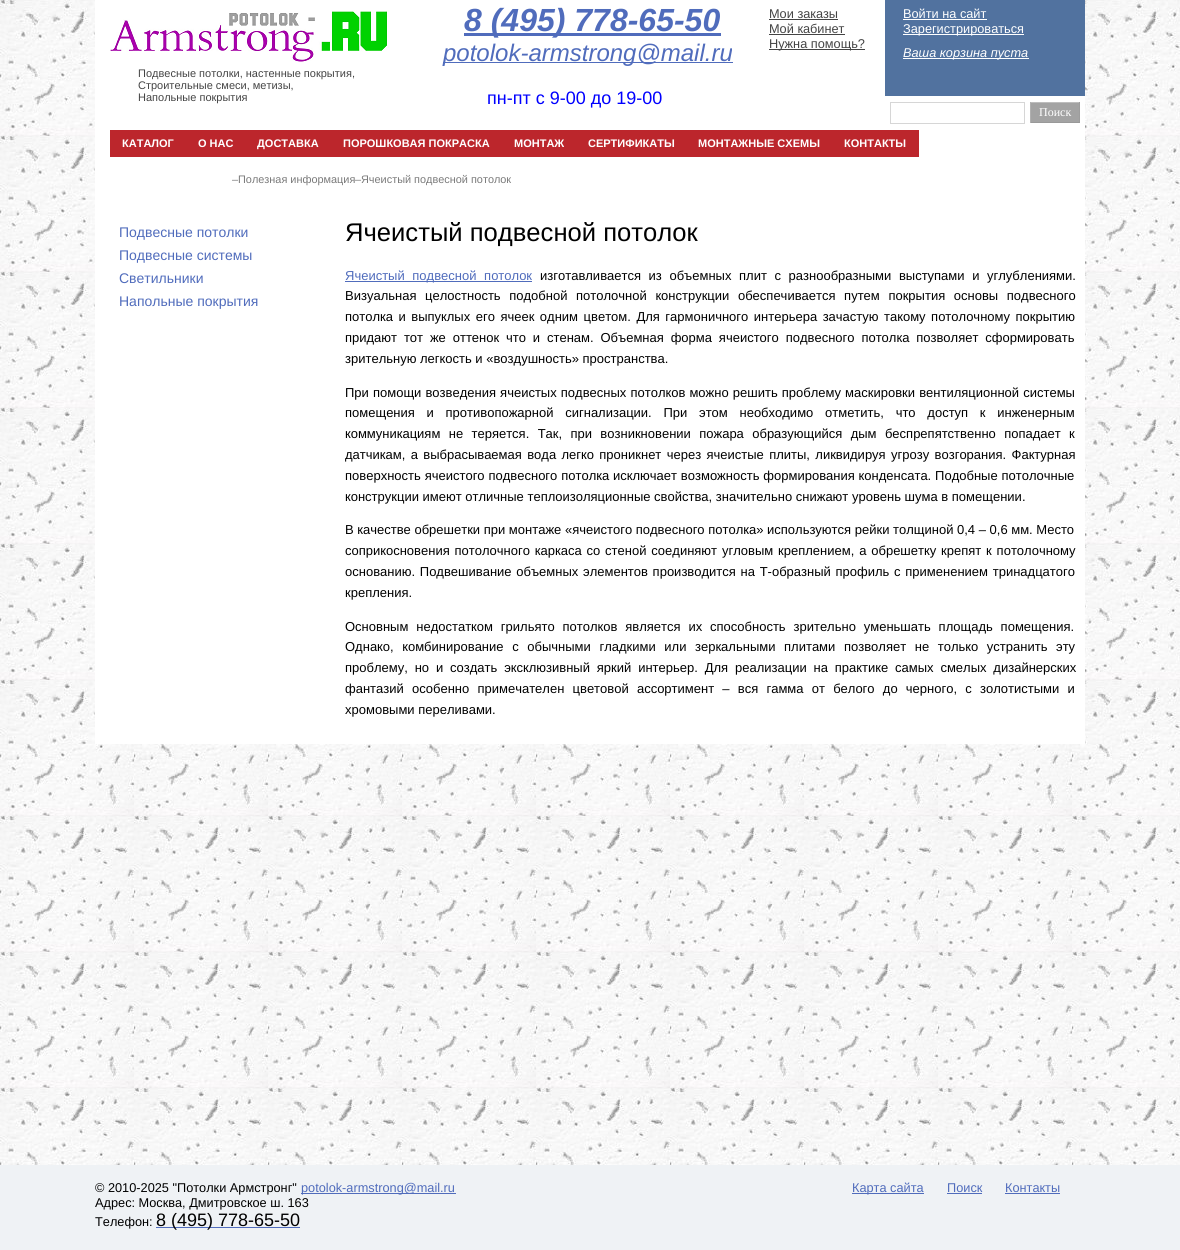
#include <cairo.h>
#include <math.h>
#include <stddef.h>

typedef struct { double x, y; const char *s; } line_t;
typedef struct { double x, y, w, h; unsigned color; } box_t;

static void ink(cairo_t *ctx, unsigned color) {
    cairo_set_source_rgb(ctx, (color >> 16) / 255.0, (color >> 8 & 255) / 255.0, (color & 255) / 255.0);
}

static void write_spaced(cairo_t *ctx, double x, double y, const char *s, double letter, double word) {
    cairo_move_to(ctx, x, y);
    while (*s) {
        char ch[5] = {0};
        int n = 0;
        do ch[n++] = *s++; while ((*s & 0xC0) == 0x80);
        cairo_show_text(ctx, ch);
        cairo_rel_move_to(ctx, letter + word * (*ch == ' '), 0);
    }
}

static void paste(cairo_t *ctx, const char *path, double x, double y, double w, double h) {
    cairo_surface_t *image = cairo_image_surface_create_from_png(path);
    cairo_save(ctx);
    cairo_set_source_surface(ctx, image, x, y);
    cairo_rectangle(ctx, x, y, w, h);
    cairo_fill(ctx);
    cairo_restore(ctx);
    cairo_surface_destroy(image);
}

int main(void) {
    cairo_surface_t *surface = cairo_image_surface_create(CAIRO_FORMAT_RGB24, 1180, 1250);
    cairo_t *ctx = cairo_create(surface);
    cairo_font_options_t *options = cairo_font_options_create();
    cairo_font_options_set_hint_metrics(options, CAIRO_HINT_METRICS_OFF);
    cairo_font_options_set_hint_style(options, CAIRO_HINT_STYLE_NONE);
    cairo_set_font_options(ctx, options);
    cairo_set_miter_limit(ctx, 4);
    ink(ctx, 0xFFFFFF);
    cairo_paint(ctx);
    paste(ctx, "media/1.png", 0, 0, 1180, 1165);
    ink(ctx, 0xFFFFFF);
    cairo_rectangle(ctx, 95, 0, 990, 744);
    cairo_fill(ctx);
    ink(ctx, 0x506CBC);
    cairo_rectangle(ctx, 464, 33, 257, 3);
    cairo_fill(ctx);
    cairo_select_font_face(ctx, "Liberation Sans", CAIRO_FONT_SLANT_ITALIC, CAIRO_FONT_WEIGHT_BOLD);
    cairo_set_font_size(ctx, 32);
    cairo_move_to(ctx, 464, 31);
    cairo_show_text(ctx, "8 (495) 778-65-50");
    cairo_rectangle(ctx, 443, 62, 290, 1);
    cairo_fill(ctx);
    cairo_select_font_face(ctx, "Liberation Sans", CAIRO_FONT_SLANT_ITALIC, CAIRO_FONT_WEIGHT_NORMAL);
    cairo_set_font_size(ctx, 24);
    cairo_move_to(ctx, 443, 61);
    cairo_show_text(ctx, "potolok-armstrong@mail.ru");
    cairo_select_font_face(ctx, "Liberation Sans", CAIRO_FONT_SLANT_NORMAL, CAIRO_FONT_WEIGHT_NORMAL);
    cairo_set_font_size(ctx, 18);
    ink(ctx, 0x0000FF);
    cairo_move_to(ctx, 487, 104);
    cairo_show_text(ctx, "пн-пт с 9-00 до 19-00");
    cairo_set_font_size(ctx, 12.75);
    ink(ctx, 0x444444);
    cairo_move_to(ctx, 769, 18);
    cairo_show_text(ctx, "Мои заказы");
    cairo_rectangle(ctx, 769, 19, 69, 1);
    cairo_fill(ctx);
    cairo_move_to(ctx, 769, 33);
    cairo_show_text(ctx, "Мой кабинет");
    cairo_rectangle(ctx, 769, 34, 76, 1);
    cairo_fill(ctx);
    cairo_rectangle(ctx, 769, 49, 96, 1);
    cairo_fill(ctx);
    cairo_move_to(ctx, 769, 48);
    cairo_show_text(ctx, "Нужна помощь?");
    ink(ctx, 0x51729F);
    cairo_rectangle(ctx, 885, 0, 200, 96);
    cairo_fill(ctx);
    ink(ctx, 0xFFFFFF);
    cairo_move_to(ctx, 903, 18);
    cairo_show_text(ctx, "Войти на сайт");
    cairo_rectangle(ctx, 903, 19, 84, 1);
    cairo_fill(ctx);
    cairo_rectangle(ctx, 903, 34, 121, 1);
    cairo_fill(ctx);
    cairo_move_to(ctx, 903, 33);
    cairo_show_text(ctx, "Зарегистрироваться");
    cairo_rectangle(ctx, 903, 58, 126, 1);
    cairo_fill(ctx);
    cairo_select_font_face(ctx, "Liberation Sans", CAIRO_FONT_SLANT_ITALIC, CAIRO_FONT_WEIGHT_NORMAL);
    cairo_move_to(ctx, 903, 57);
    cairo_show_text(ctx, "Ваша корзина пуста");
    paste(ctx, "media/2.png", 110, 10, 279, 52);
    cairo_select_font_face(ctx, "Liberation Sans", CAIRO_FONT_SLANT_NORMAL, CAIRO_FONT_WEIGHT_NORMAL);
    cairo_set_font_size(ctx, 11);
    ink(ctx, 0x444444);
    {
        static const line_t items[] = {
            {138, 77, "Подвесные потолки, настенные покрытия,"},
            {138, 89, "Строительные смеси, метизы,"},
            {138, 101, "Напольные покрытия"},
        };
        for (size_t i = 0; i < sizeof items / sizeof *items; i++) {
            cairo_move_to(ctx, items[i].x, items[i].y);
            cairo_show_text(ctx, items[i].s);
        }
    }
    cairo_rectangle(ctx, 890.5, 102.5, 134, 21);
    ink(ctx, 0xD6D6D6);
    cairo_set_line_width(ctx, 1);
    cairo_stroke(ctx);
    {
        static const box_t items[] = {
            {1031, 103, 48, 19, 0xA3A3A3},
            {1030, 102, 50, 1, 0xBDBDBD},
            {1079, 102, 1, 21, 0x9D9D9D},
            {1030, 122, 50, 1, 0x999999},
            {1030, 102, 1, 21, 0xB0B0B0},
        };
        for (size_t i = 0; i < sizeof items / sizeof *items; i++) {
            ink(ctx, items[i].color);
            cairo_rectangle(ctx, items[i].x, items[i].y, items[i].w, items[i].h);
            cairo_fill(ctx);
        }
    }
    cairo_select_font_face(ctx, "Liberation Serif", CAIRO_FONT_SLANT_NORMAL, CAIRO_FONT_WEIGHT_NORMAL);
    cairo_set_font_size(ctx, 12);
    ink(ctx, 0xFFFFFF);
    cairo_move_to(ctx, 1039, 116);
    cairo_show_text(ctx, "Поиск");
    ink(ctx, 0xBC262C);
    cairo_rectangle(ctx, 110, 130, 809, 27);
    cairo_fill(ctx);
    cairo_select_font_face(ctx, "Liberation Sans", CAIRO_FONT_SLANT_NORMAL, CAIRO_FONT_WEIGHT_BOLD);
    cairo_set_font_size(ctx, 11);
    ink(ctx, 0xFFFFFF);
    {
        static const line_t items[] = {
            {122, 147, "КАТАЛОГ"},
            {198, 147, "О НАС"},
            {257, 147, "ДОСТАВКА"},
            {343, 147, "ПОРОШКОВАЯ ПОКРАСКА"},
            {514, 147, "МОНТАЖ"},
            {588, 147, "СЕРТИФИКАТЫ"},
            {698, 147, "МОНТАЖНЫЕ СХЕМЫ"},
            {844, 147, "КОНТАКТЫ"},
        };
        for (size_t i = 0; i < sizeof items / sizeof *items; i++) {
            cairo_move_to(ctx, items[i].x, items[i].y);
            cairo_show_text(ctx, items[i].s);
        }
    }
    cairo_select_font_face(ctx, "Liberation Sans", CAIRO_FONT_SLANT_ITALIC, CAIRO_FONT_WEIGHT_NORMAL);
    cairo_set_font_size(ctx, 10.9);
    ink(ctx, 0x7A7A7A);
    cairo_move_to(ctx, 232, 183);
    cairo_show_text(ctx, "–");
    cairo_select_font_face(ctx, "Liberation Sans", CAIRO_FONT_SLANT_NORMAL, CAIRO_FONT_WEIGHT_NORMAL);
    cairo_move_to(ctx, 238, 183);
    cairo_show_text(ctx, "Полезная информация");
    cairo_select_font_face(ctx, "Liberation Sans", CAIRO_FONT_SLANT_ITALIC, CAIRO_FONT_WEIGHT_NORMAL);
    cairo_move_to(ctx, 355, 183);
    cairo_show_text(ctx, "–");
    cairo_select_font_face(ctx, "Liberation Sans", CAIRO_FONT_SLANT_NORMAL, CAIRO_FONT_WEIGHT_NORMAL);
    cairo_move_to(ctx, 361, 183);
    cairo_show_text(ctx, "Ячеистый подвесной потолок");
    cairo_set_font_size(ctx, 14);
    ink(ctx, 0x506CBC);
    {
        static const line_t items[] = {
            {119, 237, "Подвесные потолки"},
            {119, 260, "Подвесные системы"},
            {119, 283, "Светильники"},
            {119, 306, "Напольные покрытия"},
        };
        for (size_t i = 0; i < sizeof items / sizeof *items; i++) {
            cairo_move_to(ctx, items[i].x, items[i].y);
            cairo_show_text(ctx, items[i].s);
        }
    }
    cairo_set_font_size(ctx, 25.6);
    ink(ctx, 0x000000);
    cairo_move_to(ctx, 345, 241);
    cairo_show_text(ctx, "Ячеистый подвесной потолок");
    ink(ctx, 0x506CBC);
    cairo_rectangle(ctx, 345, 281, 187, 1);
    cairo_fill(ctx);
    cairo_set_font_size(ctx, 13);
    write_spaced(ctx, 345, 280, "Ячеистый подвесной потолок", 0, 4);
    ink(ctx, 0x000000);
    write_spaced(ctx, 540, 280, "изготавливается из объемных плит с разнообразными выступами и углублениями.", 0, 4);
    write_spaced(ctx, 345, 300, "Визуальная целостность подобной потолочной конструкции обеспечивается путем покрытия основы подвесного", 0, 5);
    write_spaced(ctx, 345, 321, "потолка и выпуклых его ячеек одним цветом. Для гармоничного интерьера зачастую такому потолочному покрытию", 0, 1.9);
    write_spaced(ctx, 345, 342, "придают тот же оттенок что и стенам. Объемная форма ячеистого подвесного потолка позволяет сформировать", 0, 3.25);
    cairo_move_to(ctx, 345, 363);
    cairo_show_text(ctx, "зрительную легкость и «воздушность» пространства.");
    write_spaced(ctx, 345, 397, "При помощи возведения ячеистых подвесных потолков можно решить проблему маскировки вентиляционной системы", 0, 0.5);
    write_spaced(ctx, 345, 417, "помещения и противопожарной сигнализации. При этом необходимо отметить, что доступ к инженерным", 0, 8.1);
    write_spaced(ctx, 345, 438, "коммуникациям не теряется. Так, при возникновении пожара образующийся дым беспрепятственно попадает к", 0, 4.75);
    write_spaced(ctx, 345, 459, "датчикам, а выбрасываемая вода легко проникнет через ячеистые плиты, ликвидируя угрозу возгорания. Фактурная", 0, 1.75);
    write_spaced(ctx, 345, 480, "поверхность ячеистого подвесного потолка исключает возможность формирования конденсата. Подобные потолочные", 0, 0.25);
    cairo_move_to(ctx, 345, 501);
    cairo_show_text(ctx, "конструкции имеют отличные теплоизоляционные свойства, значительно снижают уровень шума в помещении.");
    cairo_move_to(ctx, 345, 534);
    cairo_show_text(ctx, "В качестве обрешетки при монтаже «ячеистого подвесного потолка» используются рейки толщиной 0,4 – 0,6 мм. Место");
    write_spaced(ctx, 345, 555, "соприкосновения потолочного каркаса со стеной соединяют угловым креплением, а обрешетку крепят к потолочному", 0, 1.25);
    write_spaced(ctx, 345, 576, "основанию. Подвешивание объемных элементов производится на Т-образный профиль с применением тринадцатого", 0, 1.1);
    cairo_move_to(ctx, 345, 597);
    cairo_show_text(ctx, "крепления.");
    write_spaced(ctx, 345, 631, "Основным недостатком грильято потолков является их способность зрительно уменьшать площадь помещения.", 0, 4.25);
    write_spaced(ctx, 345, 651, "Однако, комбинирование с обычными гладкими или зеркальными плитами позволяет не только устранить эту", 0, 5);
    write_spaced(ctx, 345, 672, "проблему, но и создать эксклюзивный яркий интерьер. Для реализации на практике самых смелых дизайнерских", 0, 3.25);
    write_spaced(ctx, 345, 693, "фантазий особенно примечателен цветовой ассортимент – вся гамма от белого до черного, с золотистыми и", 0, 4.6);
    cairo_move_to(ctx, 345, 714);
    cairo_show_text(ctx, "хромовыми переливами.");
    ink(ctx, 0xEFF2F5);
    cairo_rectangle(ctx, 0, 1165, 1180, 85);
    cairo_fill(ctx);
    cairo_set_font_size(ctx, 12.75);
    ink(ctx, 0x000000);
    cairo_move_to(ctx, 95, 1192);
    cairo_show_text(ctx, "© 2010-2025 \"Потолки Армстронг\"");
    ink(ctx, 0x506CBC);
    cairo_rectangle(ctx, 301, 1193, 155, 1);
    cairo_fill(ctx);
    cairo_move_to(ctx, 301, 1192);
    cairo_show_text(ctx, "potolok-armstrong@mail.ru");
    ink(ctx, 0x000000);
    cairo_move_to(ctx, 95, 1207);
    cairo_show_text(ctx, "Адрес: Москва, Дмитровское ш. 163");
    cairo_move_to(ctx, 95, 1226);
    cairo_show_text(ctx, "Телефон:");
    ink(ctx, 0x506CBC);
    cairo_rectangle(ctx, 156, 1227, 144, 1);
    cairo_fill(ctx);
    cairo_set_font_size(ctx, 18);
    ink(ctx, 0x000000);
    cairo_move_to(ctx, 156, 1226);
    cairo_show_text(ctx, "8 (495) 778-65-50");
    ink(ctx, 0x506CBC);
    cairo_rectangle(ctx, 852, 1193, 72, 1);
    cairo_fill(ctx);
    cairo_set_font_size(ctx, 12.75);
    cairo_move_to(ctx, 852, 1192);
    cairo_show_text(ctx, "Карта сайта");
    cairo_move_to(ctx, 947, 1192);
    cairo_show_text(ctx, "Поиск");
    cairo_rectangle(ctx, 947, 1193, 35, 1);
    cairo_fill(ctx);
    cairo_move_to(ctx, 1005, 1192);
    cairo_show_text(ctx, "Контакты");
    cairo_rectangle(ctx, 1005, 1193, 55, 1);
    cairo_fill(ctx);
    cairo_surface_write_to_png(surface, "image.png");
    cairo_font_options_destroy(options);
    cairo_destroy(ctx);
    cairo_surface_destroy(surface);
    return 0;
}
